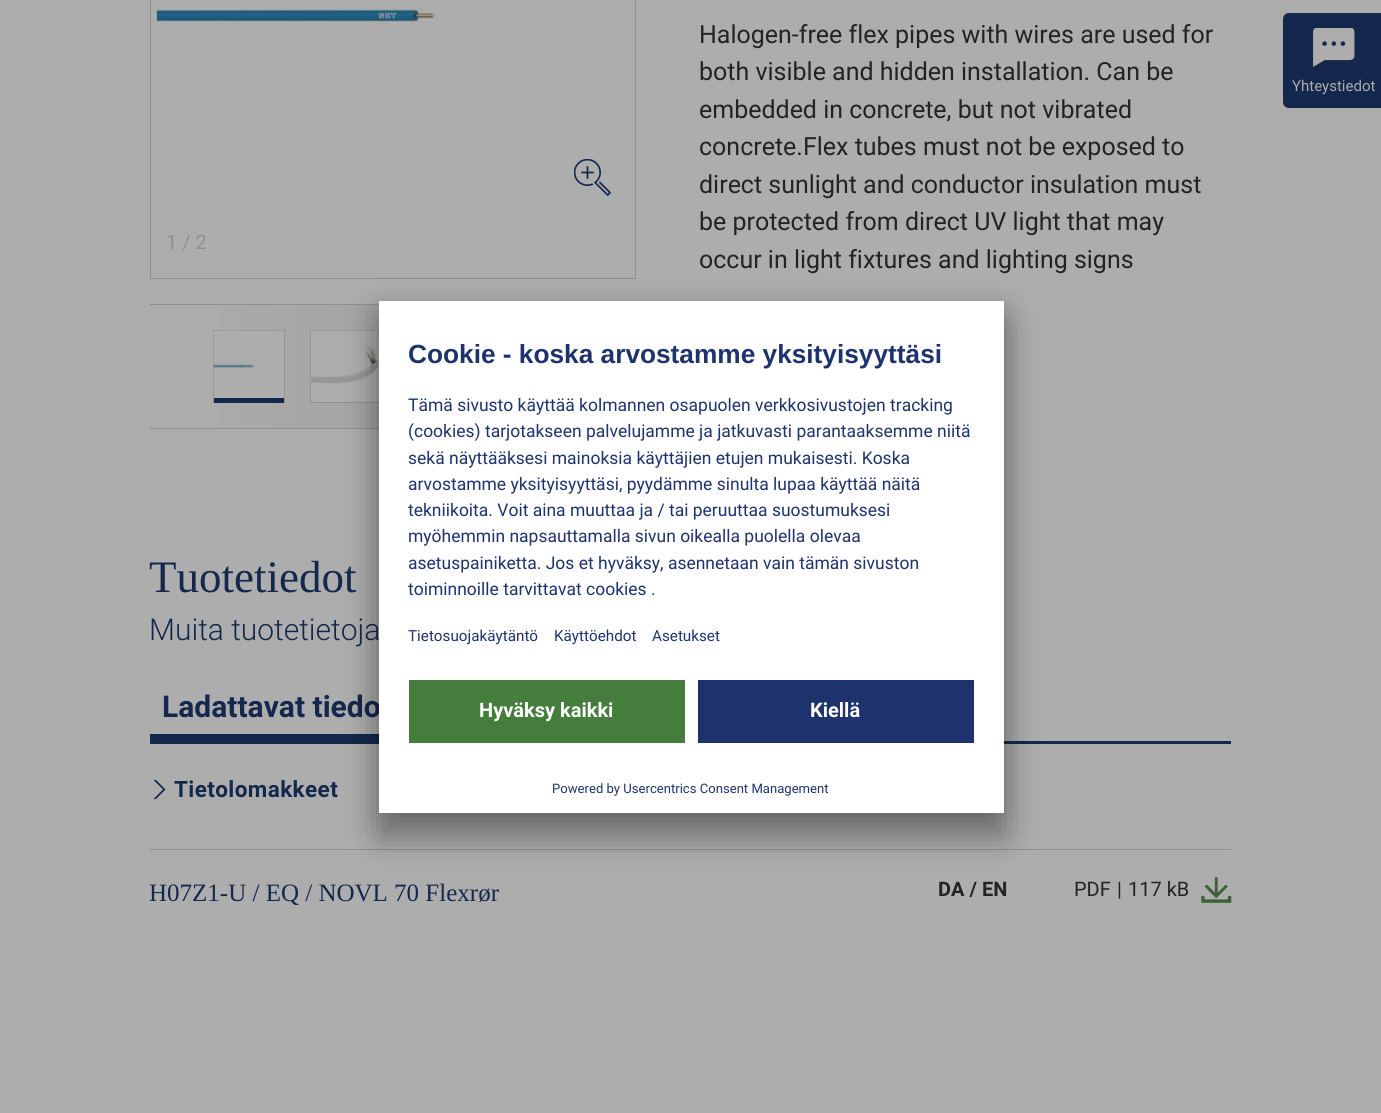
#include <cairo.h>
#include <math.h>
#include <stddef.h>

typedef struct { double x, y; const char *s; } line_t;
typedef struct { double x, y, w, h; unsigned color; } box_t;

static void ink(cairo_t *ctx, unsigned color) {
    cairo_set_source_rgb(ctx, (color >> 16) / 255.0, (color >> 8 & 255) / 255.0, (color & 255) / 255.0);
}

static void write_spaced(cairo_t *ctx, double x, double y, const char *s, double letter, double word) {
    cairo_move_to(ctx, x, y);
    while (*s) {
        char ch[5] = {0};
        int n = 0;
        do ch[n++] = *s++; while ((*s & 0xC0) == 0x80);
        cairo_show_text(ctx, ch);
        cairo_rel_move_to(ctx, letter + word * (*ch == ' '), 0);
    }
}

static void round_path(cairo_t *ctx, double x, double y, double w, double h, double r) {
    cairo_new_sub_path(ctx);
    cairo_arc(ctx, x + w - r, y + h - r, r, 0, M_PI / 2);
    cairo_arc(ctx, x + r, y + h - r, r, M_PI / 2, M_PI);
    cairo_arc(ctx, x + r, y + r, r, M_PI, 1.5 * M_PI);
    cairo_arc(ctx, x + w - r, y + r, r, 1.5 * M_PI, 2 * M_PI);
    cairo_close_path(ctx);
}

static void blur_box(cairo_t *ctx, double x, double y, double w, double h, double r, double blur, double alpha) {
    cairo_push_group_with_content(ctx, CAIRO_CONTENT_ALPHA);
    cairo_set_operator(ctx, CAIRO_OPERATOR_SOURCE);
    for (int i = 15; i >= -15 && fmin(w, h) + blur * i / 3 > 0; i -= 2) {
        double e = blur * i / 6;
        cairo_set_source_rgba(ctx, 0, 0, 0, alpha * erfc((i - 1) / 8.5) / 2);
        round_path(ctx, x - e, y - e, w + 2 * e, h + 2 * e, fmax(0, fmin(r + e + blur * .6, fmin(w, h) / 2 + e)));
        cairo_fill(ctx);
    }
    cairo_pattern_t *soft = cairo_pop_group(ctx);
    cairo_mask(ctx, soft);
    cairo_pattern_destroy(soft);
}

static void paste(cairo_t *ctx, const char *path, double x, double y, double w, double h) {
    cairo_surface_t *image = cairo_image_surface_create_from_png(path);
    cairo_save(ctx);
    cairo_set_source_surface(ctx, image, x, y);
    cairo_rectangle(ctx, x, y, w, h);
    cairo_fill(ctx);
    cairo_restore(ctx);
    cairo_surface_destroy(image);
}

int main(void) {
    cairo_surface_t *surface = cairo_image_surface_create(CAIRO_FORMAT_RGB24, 1381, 1113);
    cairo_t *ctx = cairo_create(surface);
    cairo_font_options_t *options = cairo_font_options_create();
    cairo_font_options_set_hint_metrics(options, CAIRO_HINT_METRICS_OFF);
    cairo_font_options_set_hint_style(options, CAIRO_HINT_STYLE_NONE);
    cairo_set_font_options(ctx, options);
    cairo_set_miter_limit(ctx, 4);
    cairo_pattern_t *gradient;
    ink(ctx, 0xADADAD);
    cairo_paint(ctx);
    cairo_rectangle(ctx, 150.5, -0.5, 485, 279);
    ink(ctx, 0x909090);
    cairo_set_line_width(ctx, 1);
    cairo_stroke(ctx);
    paste(ctx, "media/1.png", 151, 3, 287, 23);
    paste(ctx, "media/2.png", 574, 159, 38, 38);
    cairo_select_font_face(ctx, "Roboto", CAIRO_FONT_SLANT_NORMAL, CAIRO_FONT_WEIGHT_NORMAL);
    cairo_set_font_size(ctx, 20);
    cairo_move_to(ctx, 166, 249);
    cairo_show_text(ctx, "1 / 2");
    gradient = cairo_pattern_create_linear(150, 366, 636, 366);
    cairo_pattern_add_color_stop_rgba(gradient, 0, 0.678, 0.678, 0.678, 1);
    cairo_pattern_add_color_stop_rgba(gradient, 0.5, 0.643, 0.643, 0.643, 1);
    cairo_pattern_add_color_stop_rgba(gradient, 1, 0.678, 0.678, 0.678, 1);
    cairo_set_source(ctx, gradient);
    cairo_pattern_destroy(gradient);
    cairo_rectangle(ctx, 218, 305, 161, 123);
    cairo_fill(ctx);
    {
        static const box_t items[] = {
            {150, 304, 229, 1, 0x909090},
            {150, 428, 229, 1, 0x909090},
            {218, 331, 66, 67, 0xADADAD},
        };
        for (size_t i = 0; i < sizeof items / sizeof *items; i++) {
            ink(ctx, items[i].color);
            cairo_rectangle(ctx, items[i].x, items[i].y, items[i].w, items[i].h);
            cairo_fill(ctx);
        }
    }
    cairo_rectangle(ctx, 213.5, 330.5, 71, 72);
    ink(ctx, 0x909090);
    cairo_stroke(ctx);
    paste(ctx, "media/3.png", 213, 330, 72, 71);
    ink(ctx, 0x14284D);
    cairo_rectangle(ctx, 214, 398, 70, 5);
    cairo_fill(ctx);
    ink(ctx, 0xADADAD);
    cairo_rectangle(ctx, 311, 331, 68, 71);
    cairo_fill(ctx);
    cairo_rectangle(ctx, 310.5, 330.5, 72, 72);
    ink(ctx, 0x909090);
    cairo_stroke(ctx);
    paste(ctx, "media/4.png", 310, 330, 69, 70);
    cairo_set_font_size(ctx, 25);
    ink(ctx, 0x232323);
    {
        static const line_t items[] = {
            {699, 43, "Halogen-free flex pipes with wires are used for"},
            {699, 80, "both visible and hidden installation. Can be"},
            {699, 118, "embedded in concrete, but not vibrated"},
            {699, 155, "concrete.Flex tubes must not be exposed to"},
            {699, 193, "direct sunlight and conductor insulation must"},
            {699, 230, "be protected from direct UV light that may"},
            {699, 268, "occur in light fixtures and lighting signs"},
        };
        for (size_t i = 0; i < sizeof items / sizeof *items; i++) {
            cairo_move_to(ctx, items[i].x, items[i].y);
            cairo_show_text(ctx, items[i].s);
        }
    }
    ink(ctx, 0x14284D);
    cairo_new_path(ctx);
    cairo_move_to(ctx, 1289, 13);
    cairo_line_to(ctx, 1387, 13);
    cairo_line_to(ctx, 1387, 108);
    cairo_line_to(ctx, 1289, 108);
    cairo_curve_to(ctx, 1285.5, 108, 1283, 105.5, 1283, 102);
    cairo_line_to(ctx, 1283, 19);
    cairo_curve_to(ctx, 1283, 15.5, 1285.5, 13, 1289, 13);
    cairo_close_path(ctx);
    cairo_fill(ctx);
    paste(ctx, "media/5.png", 1313, 28, 42, 39);
    cairo_set_font_size(ctx, 15);
    ink(ctx, 0xADADAD);
    cairo_move_to(ctx, 1292, 91);
    cairo_show_text(ctx, "Yhteystiedot");
    cairo_select_font_face(ctx, "Liberation Serif", CAIRO_FONT_SLANT_NORMAL, CAIRO_FONT_WEIGHT_NORMAL);
    cairo_set_font_size(ctx, 45);
    ink(ctx, 0x14284D);
    cairo_move_to(ctx, 149, 592);
    cairo_show_text(ctx, "Tuotetiedot");
    cairo_select_font_face(ctx, "Roboto Light", CAIRO_FONT_SLANT_NORMAL, CAIRO_FONT_WEIGHT_NORMAL);
    cairo_set_font_size(ctx, 30);
    cairo_move_to(ctx, 149, 640);
    cairo_show_text(ctx, "Muita tuotetietoja");
    cairo_rectangle(ctx, 150, 741, 1081, 3);
    cairo_fill(ctx);
    cairo_select_font_face(ctx, "Roboto", CAIRO_FONT_SLANT_NORMAL, CAIRO_FONT_WEIGHT_BOLD);
    cairo_move_to(ctx, 162, 717);
    cairo_show_text(ctx, "Ladattavat tiedo");
    cairo_rectangle(ctx, 150, 734, 229, 7);
    cairo_fill(ctx);
    cairo_set_fill_rule(ctx, CAIRO_FILL_RULE_EVEN_ODD);
    cairo_new_path(ctx);
    cairo_move_to(ctx, 156, 799);
    cairo_line_to(ctx, 153.5, 799);
    cairo_line_to(ctx, 163, 789.5);
    cairo_line_to(ctx, 153.5, 780);
    cairo_line_to(ctx, 156, 780);
    cairo_line_to(ctx, 165.5, 789.5);
    cairo_close_path(ctx);
    cairo_fill(ctx);
    cairo_set_font_size(ctx, 22.5);
    write_spaced(ctx, 174, 797, "Tietolomakkeet", 0.4, 0);
    ink(ctx, 0x909090);
    cairo_rectangle(ctx, 150, 849, 1081, 1);
    cairo_fill(ctx);
    cairo_select_font_face(ctx, "Liberation Serif", CAIRO_FONT_SLANT_NORMAL, CAIRO_FONT_WEIGHT_NORMAL);
    cairo_set_font_size(ctx, 25);
    ink(ctx, 0x14284D);
    cairo_move_to(ctx, 149, 901);
    cairo_show_text(ctx, "H07Z1-U / EQ / NOVL 70 Flexrør");
    cairo_select_font_face(ctx, "Roboto", CAIRO_FONT_SLANT_NORMAL, CAIRO_FONT_WEIGHT_BOLD);
    cairo_set_font_size(ctx, 20);
    ink(ctx, 0x232323);
    cairo_move_to(ctx, 938, 896);
    cairo_show_text(ctx, "DA / EN");
    cairo_select_font_face(ctx, "Roboto", CAIRO_FONT_SLANT_NORMAL, CAIRO_FONT_WEIGHT_NORMAL);
    {
        static const line_t items[] = {
            {1074, 896, "PDF"},
            {1117, 896, "|"},
            {1128, 896, "117 kB"},
        };
        for (size_t i = 0; i < sizeof items / sizeof *items; i++) {
            cairo_move_to(ctx, items[i].x, items[i].y);
            cairo_show_text(ctx, items[i].s);
        }
    }
    paste(ctx, "media/6.png", 1201, 877, 31, 26);
    ink(ctx, 0x000000);
    blur_box(ctx, 379, 326, 625, 512, 0, 17.5, 0.3);
    blur_box(ctx, 379, 308, 625, 511, 0, 16, 0.22);
    ink(ctx, 0xFFFFFF);
    cairo_rectangle(ctx, 379, 301, 625, 512);
    cairo_fill(ctx);
    cairo_select_font_face(ctx, "Liberation Sans", CAIRO_FONT_SLANT_NORMAL, CAIRO_FONT_WEIGHT_BOLD);
    cairo_set_font_size(ctx, 26.25);
    ink(ctx, 0x1E326E);
    cairo_move_to(ctx, 408, 363);
    cairo_show_text(ctx, "Cookie - koska arvostamme yksityisyyttäsi");
    cairo_select_font_face(ctx, "Roboto", CAIRO_FONT_SLANT_NORMAL, CAIRO_FONT_WEIGHT_NORMAL);
    cairo_set_font_size(ctx, 17.5);
    {
        static const line_t items[] = {
            {408, 411, "Tämä sivusto käyttää kolmannen osapuolen verkkosivustojen tracking"},
            {408, 437, "(cookies) tarjotakseen palvelujamme ja jatkuvasti parantaaksemme niitä"},
            {408, 464, "sekä näyttääksesi mainoksia käyttäjien etujen mukaisesti. Koska"},
            {408, 490, "arvostamme yksityisyyttäsi, pyydämme sinulta lupaa käyttää näitä"},
            {408, 516, "tekniikoita. Voit aina muuttaa ja / tai peruuttaa suostumuksesi"},
            {408, 542, "myöhemmin napsauttamalla sivun oikealla puolella olevaa"},
            {408, 569, "asetuspainiketta. Jos et hyväksy, asennetaan vain tämän sivuston"},
            {408, 595, "toiminnoille tarvittavat cookies ."},
        };
        for (size_t i = 0; i < sizeof items / sizeof *items; i++) {
            cairo_move_to(ctx, items[i].x, items[i].y);
            cairo_show_text(ctx, items[i].s);
        }
    }
    cairo_set_font_size(ctx, 15.25);
    {
        static const line_t items[] = {
            {408, 641, "Tietosuojakäytäntö"},
            {554, 641, "Käyttöehdot"},
            {652, 641, "Asetukset"},
        };
        for (size_t i = 0; i < sizeof items / sizeof *items; i++) {
            cairo_move_to(ctx, items[i].x, items[i].y);
            cairo_show_text(ctx, items[i].s);
        }
    }
    ink(ctx, 0x457D3C);
    cairo_rectangle(ctx, 409, 680, 276, 63);
    cairo_fill(ctx);
    cairo_select_font_face(ctx, "Roboto", CAIRO_FONT_SLANT_NORMAL, CAIRO_FONT_WEIGHT_BOLD);
    cairo_set_font_size(ctx, 20);
    ink(ctx, 0xFFFFFF);
    cairo_move_to(ctx, 479, 717);
    cairo_show_text(ctx, "Hyväksy kaikki");
    ink(ctx, 0x1E326E);
    cairo_rectangle(ctx, 698, 680, 276, 63);
    cairo_fill(ctx);
    ink(ctx, 0xFFFFFF);
    cairo_move_to(ctx, 810, 717);
    cairo_show_text(ctx, "Kiellä");
    cairo_select_font_face(ctx, "Roboto", CAIRO_FONT_SLANT_NORMAL, CAIRO_FONT_WEIGHT_NORMAL);
    cairo_set_font_size(ctx, 13.1);
    ink(ctx, 0x1E326E);
    cairo_move_to(ctx, 552, 793);
    cairo_show_text(ctx, "Powered by Usercentrics Consent Management");
    cairo_surface_write_to_png(surface, "image.png");
    cairo_font_options_destroy(options);
    cairo_destroy(ctx);
    cairo_surface_destroy(surface);
    return 0;
}
